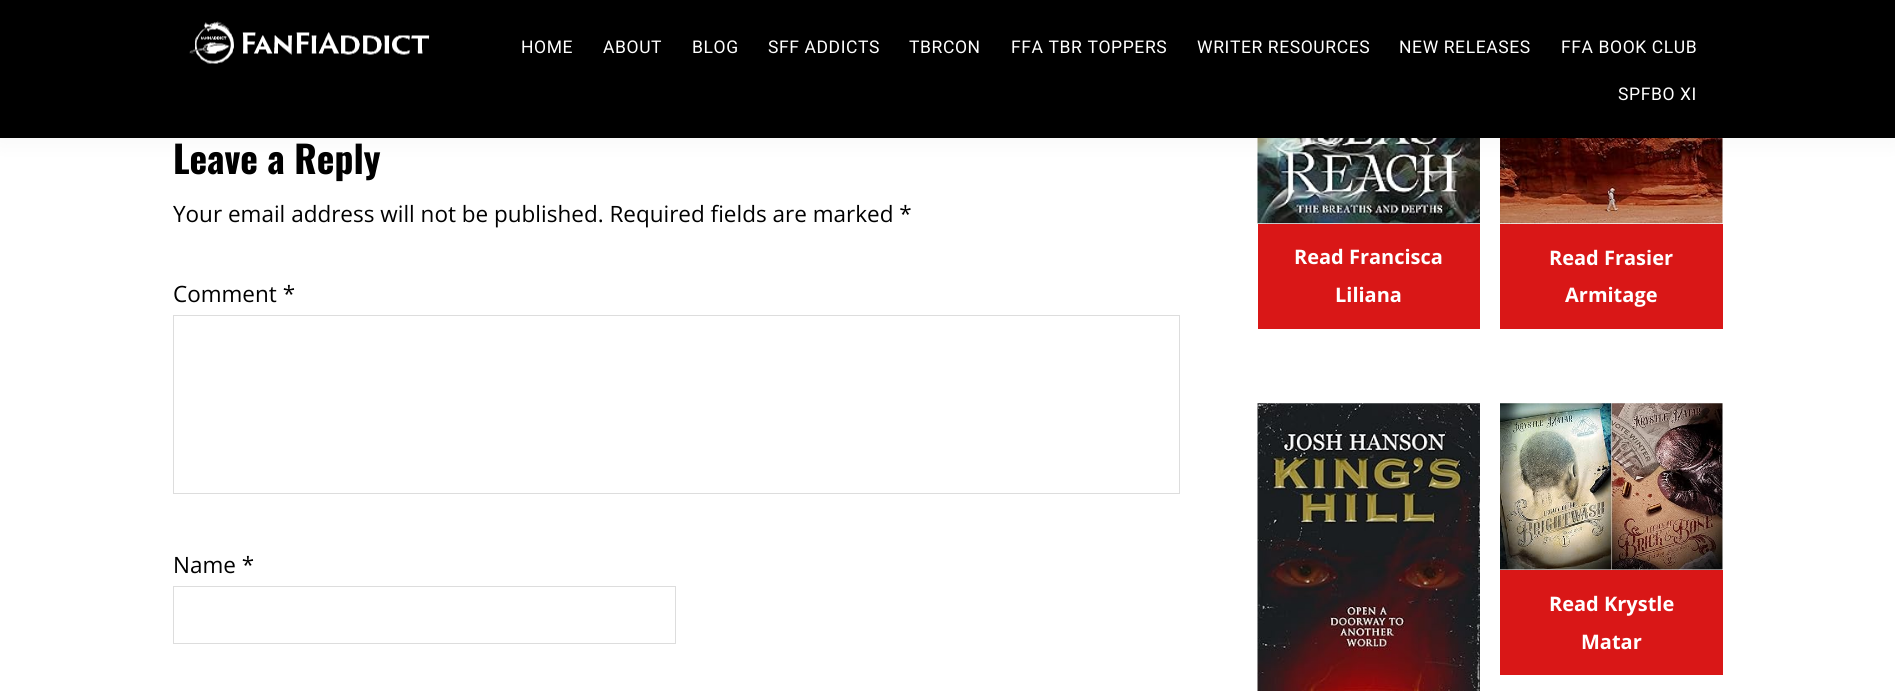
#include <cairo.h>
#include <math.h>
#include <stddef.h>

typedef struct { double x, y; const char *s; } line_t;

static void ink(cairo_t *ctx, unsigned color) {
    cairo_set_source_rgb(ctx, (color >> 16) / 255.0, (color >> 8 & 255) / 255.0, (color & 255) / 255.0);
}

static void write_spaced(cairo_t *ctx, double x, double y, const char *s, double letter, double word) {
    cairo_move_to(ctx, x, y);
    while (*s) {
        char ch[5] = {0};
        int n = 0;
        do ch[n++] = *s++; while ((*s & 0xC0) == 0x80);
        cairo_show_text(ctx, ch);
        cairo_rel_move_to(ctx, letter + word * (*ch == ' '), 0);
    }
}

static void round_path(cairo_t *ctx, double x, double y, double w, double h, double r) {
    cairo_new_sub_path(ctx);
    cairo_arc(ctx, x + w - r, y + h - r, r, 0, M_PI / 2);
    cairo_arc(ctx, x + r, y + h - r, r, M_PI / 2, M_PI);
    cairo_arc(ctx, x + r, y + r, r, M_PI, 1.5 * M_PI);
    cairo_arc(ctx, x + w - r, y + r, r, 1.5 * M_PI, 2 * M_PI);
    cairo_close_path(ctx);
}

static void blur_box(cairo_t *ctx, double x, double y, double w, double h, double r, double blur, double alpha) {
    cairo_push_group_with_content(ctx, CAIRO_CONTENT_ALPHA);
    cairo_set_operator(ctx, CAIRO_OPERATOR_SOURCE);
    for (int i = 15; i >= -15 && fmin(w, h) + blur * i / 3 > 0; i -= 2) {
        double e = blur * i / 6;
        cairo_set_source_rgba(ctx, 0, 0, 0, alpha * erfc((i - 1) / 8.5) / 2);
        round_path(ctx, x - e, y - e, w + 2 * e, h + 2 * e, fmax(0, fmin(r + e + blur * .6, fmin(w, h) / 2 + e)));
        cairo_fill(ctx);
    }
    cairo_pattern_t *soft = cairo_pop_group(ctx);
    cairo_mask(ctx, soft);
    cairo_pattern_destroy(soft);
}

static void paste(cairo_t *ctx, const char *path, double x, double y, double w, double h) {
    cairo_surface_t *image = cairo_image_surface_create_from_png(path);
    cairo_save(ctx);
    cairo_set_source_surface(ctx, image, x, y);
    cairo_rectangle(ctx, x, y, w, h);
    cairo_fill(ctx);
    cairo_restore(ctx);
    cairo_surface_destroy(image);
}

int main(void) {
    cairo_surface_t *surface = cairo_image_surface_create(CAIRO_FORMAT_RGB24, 1895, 691);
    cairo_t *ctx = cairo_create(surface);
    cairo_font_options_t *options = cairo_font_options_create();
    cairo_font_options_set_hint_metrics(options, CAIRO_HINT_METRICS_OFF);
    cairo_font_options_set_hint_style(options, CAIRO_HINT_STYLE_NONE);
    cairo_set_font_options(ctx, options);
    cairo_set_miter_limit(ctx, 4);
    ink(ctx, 0xFFFFFF);
    cairo_paint(ctx);
    paste(ctx, "media/2.png", 1257, 138, 223, 86);
    paste(ctx, "media/3.png", 1500, 138, 223, 86);
    ink(ctx, 0x000000);
    blur_box(ctx, 0, 0, 1895, 138, 0, 12.5, 0.05);
    ink(ctx, 0x000000);
    cairo_rectangle(ctx, 0, 0, 1895, 138);
    cairo_fill(ctx);
    paste(ctx, "media/1.png", 189, 21, 241, 43);
    cairo_select_font_face(ctx, "Roboto", CAIRO_FONT_SLANT_NORMAL, CAIRO_FONT_WEIGHT_NORMAL);
    cairo_set_font_size(ctx, 17.5);
    ink(ctx, 0xFFFFFF);
    {
        static const line_t items[] = {
            {521, 53, "HOME"},
            {603, 53, "ABOUT"},
            {692, 53, "BLOG"},
            {768, 53, "SFF ADDICTS"},
            {909, 53, "TBRCON"},
            {1011, 53, "FFA TBR TOPPERS"},
            {1197, 53, "WRITER RESOURCES"},
            {1399, 53, "NEW RELEASES"},
            {1561, 53, "FFA BOOK CLUB"},
            {1618, 100, "SPFBO XI"},
        };
        for (size_t i = 0; i < sizeof items / sizeof *items; i++) {
            write_spaced(ctx, items[i].x, items[i].y, items[i].s, 0.6, 0);
        }
    }
    cairo_select_font_face(ctx, "Oswald", CAIRO_FONT_SLANT_NORMAL, CAIRO_FONT_WEIGHT_BOLD);
    cairo_set_font_size(ctx, 37.5);
    ink(ctx, 0x000000);
    cairo_move_to(ctx, 173, 174);
    cairo_show_text(ctx, "Leave a Reply");
    cairo_select_font_face(ctx, "Open Sans", CAIRO_FONT_SLANT_NORMAL, CAIRO_FONT_WEIGHT_NORMAL);
    cairo_set_font_size(ctx, 22.5);
    cairo_move_to(ctx, 173, 222);
    cairo_show_text(ctx, "Your email address will not be published. Required fields are marked *");
    cairo_move_to(ctx, 173, 302);
    cairo_show_text(ctx, "Comment *");
    cairo_rectangle(ctx, 173.5, 315.5, 1006, 178);
    ink(ctx, 0xDDDDDD);
    cairo_set_line_width(ctx, 1);
    cairo_stroke(ctx);
    ink(ctx, 0x000000);
    cairo_move_to(ctx, 173, 573);
    cairo_show_text(ctx, "Name *");
    cairo_rectangle(ctx, 173.5, 586.5, 502, 57);
    ink(ctx, 0xDDDDDD);
    cairo_stroke(ctx);
    ink(ctx, 0xD91717);
    cairo_rectangle(ctx, 1258, 224, 222, 105);
    cairo_fill(ctx);
    cairo_select_font_face(ctx, "Open Sans", CAIRO_FONT_SLANT_NORMAL, CAIRO_FONT_WEIGHT_BOLD);
    cairo_set_font_size(ctx, 20);
    ink(ctx, 0xFFFFFF);
    cairo_move_to(ctx, 1294, 264);
    cairo_show_text(ctx, "Read Francisca");
    cairo_move_to(ctx, 1335, 302);
    cairo_show_text(ctx, "Liliana");
    ink(ctx, 0xD91717);
    cairo_rectangle(ctx, 1500, 224, 223, 105);
    cairo_fill(ctx);
    ink(ctx, 0xFFFFFF);
    cairo_move_to(ctx, 1549, 265);
    cairo_show_text(ctx, "Read Frasier");
    cairo_move_to(ctx, 1565, 302);
    cairo_show_text(ctx, "Armitage");
    paste(ctx, "media/4.png", 1257, 403, 223, 288);
    paste(ctx, "media/5.png", 1500, 403, 223, 167);
    ink(ctx, 0xD91717);
    cairo_rectangle(ctx, 1500, 570, 223, 105);
    cairo_fill(ctx);
    ink(ctx, 0xFFFFFF);
    cairo_move_to(ctx, 1549, 611);
    cairo_show_text(ctx, "Read Krystle");
    cairo_move_to(ctx, 1581, 649);
    cairo_show_text(ctx, "Matar");
    cairo_surface_write_to_png(surface, "image.png");
    cairo_font_options_destroy(options);
    cairo_destroy(ctx);
    cairo_surface_destroy(surface);
    return 0;
}
